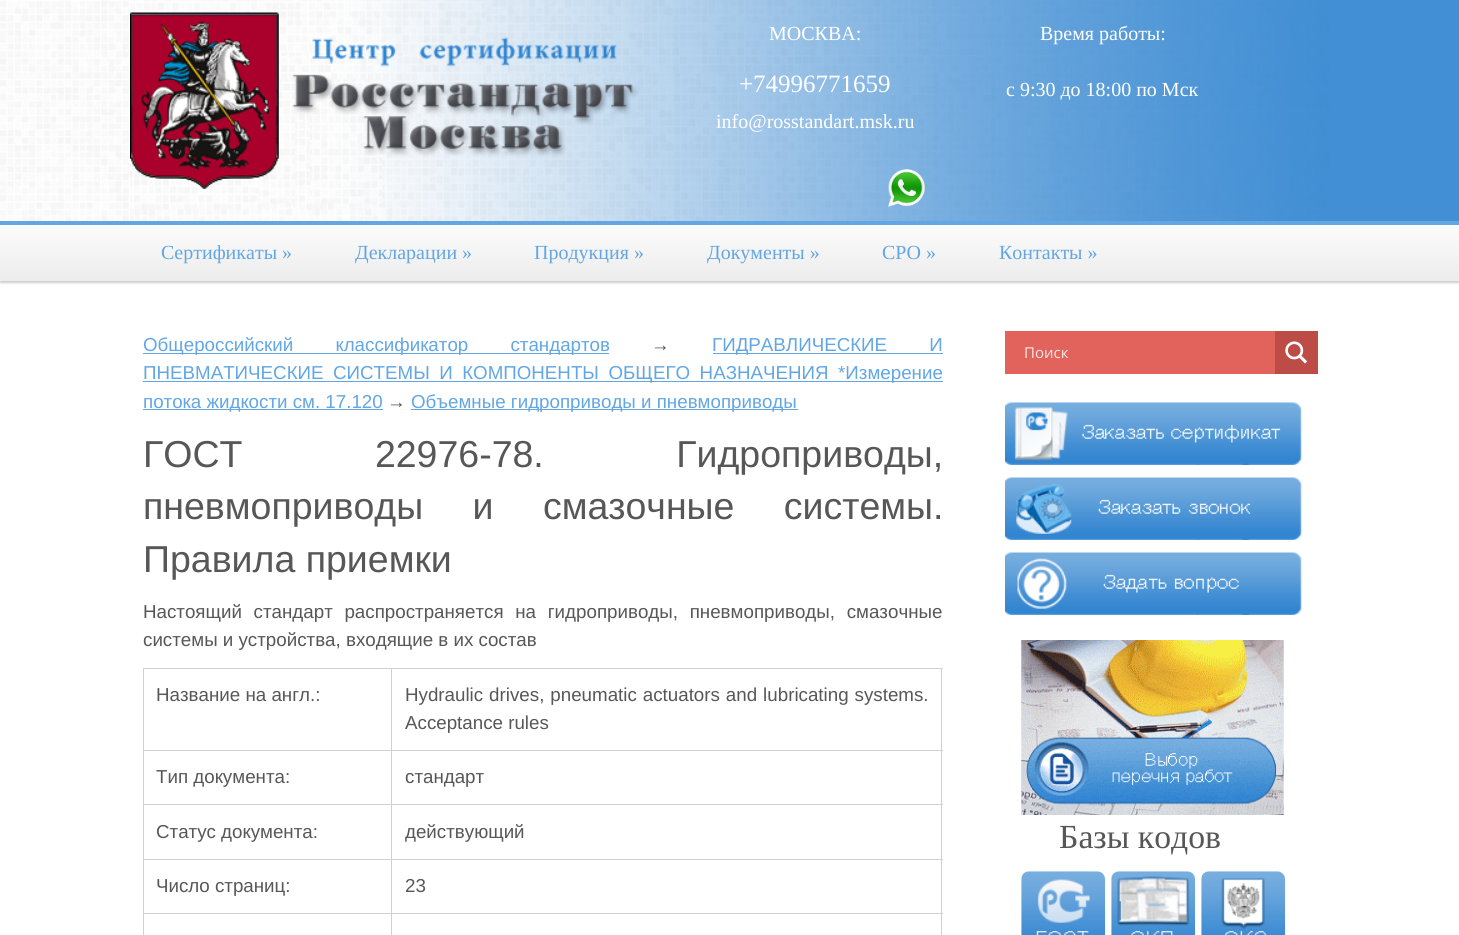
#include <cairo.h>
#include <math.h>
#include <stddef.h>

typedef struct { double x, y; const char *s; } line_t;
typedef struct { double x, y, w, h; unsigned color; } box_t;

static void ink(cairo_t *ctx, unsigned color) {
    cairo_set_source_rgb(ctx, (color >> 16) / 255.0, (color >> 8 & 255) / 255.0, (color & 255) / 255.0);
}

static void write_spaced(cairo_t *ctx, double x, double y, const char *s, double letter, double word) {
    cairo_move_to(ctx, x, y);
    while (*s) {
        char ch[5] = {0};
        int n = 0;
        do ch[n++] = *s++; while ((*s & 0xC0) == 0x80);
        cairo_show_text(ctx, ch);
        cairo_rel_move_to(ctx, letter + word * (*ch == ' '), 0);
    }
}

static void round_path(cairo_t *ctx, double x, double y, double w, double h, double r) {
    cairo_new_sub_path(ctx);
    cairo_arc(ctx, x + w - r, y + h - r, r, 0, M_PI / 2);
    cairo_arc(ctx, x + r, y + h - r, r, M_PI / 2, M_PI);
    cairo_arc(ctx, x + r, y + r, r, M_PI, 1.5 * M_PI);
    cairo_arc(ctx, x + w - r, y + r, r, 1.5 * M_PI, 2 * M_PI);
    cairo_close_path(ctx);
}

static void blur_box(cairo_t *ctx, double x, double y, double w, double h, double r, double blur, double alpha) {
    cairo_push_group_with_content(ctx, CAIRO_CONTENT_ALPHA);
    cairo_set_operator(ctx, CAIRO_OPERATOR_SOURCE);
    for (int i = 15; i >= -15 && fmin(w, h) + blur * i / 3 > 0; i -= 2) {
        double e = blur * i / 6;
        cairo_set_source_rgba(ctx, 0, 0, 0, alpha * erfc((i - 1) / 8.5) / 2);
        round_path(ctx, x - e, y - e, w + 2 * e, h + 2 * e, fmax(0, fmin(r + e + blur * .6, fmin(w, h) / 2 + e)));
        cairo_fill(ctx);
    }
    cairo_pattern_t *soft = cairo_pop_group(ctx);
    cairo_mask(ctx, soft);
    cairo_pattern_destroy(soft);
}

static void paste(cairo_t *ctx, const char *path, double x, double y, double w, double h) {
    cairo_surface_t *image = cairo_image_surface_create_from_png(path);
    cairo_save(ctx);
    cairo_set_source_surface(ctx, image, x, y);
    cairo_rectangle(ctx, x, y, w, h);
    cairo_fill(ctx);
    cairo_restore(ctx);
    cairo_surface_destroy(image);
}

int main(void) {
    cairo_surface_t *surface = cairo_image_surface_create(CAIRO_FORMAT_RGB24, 1459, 935);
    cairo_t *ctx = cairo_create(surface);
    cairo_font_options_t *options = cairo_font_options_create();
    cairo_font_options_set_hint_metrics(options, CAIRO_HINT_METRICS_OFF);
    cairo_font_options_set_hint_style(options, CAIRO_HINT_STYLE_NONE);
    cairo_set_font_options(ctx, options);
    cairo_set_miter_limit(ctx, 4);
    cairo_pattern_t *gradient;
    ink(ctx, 0xFFFFFF);
    cairo_paint(ctx);
    paste(ctx, "media/1.png", 0, 0, 129, 221);
    paste(ctx, "media/2.png", 130, 0, 1200, 221);
    paste(ctx, "media/3.png", 130, 12, 149, 177);
    paste(ctx, "media/4.png", 292, 37, 346, 119);
    cairo_select_font_face(ctx, "Liberation Serif", CAIRO_FONT_SLANT_NORMAL, CAIRO_FONT_WEIGHT_NORMAL);
    cairo_set_font_size(ctx, 20);
    ink(ctx, 0xFFFFFF);
    cairo_move_to(ctx, 769, 40);
    cairo_show_text(ctx, "МОСКВА:");
    cairo_set_font_size(ctx, 25);
    cairo_move_to(ctx, 739, 92);
    cairo_show_text(ctx, "+74996771659");
    cairo_set_font_size(ctx, 20);
    {
        static const line_t items[] = {
            {716, 128, "info@rosstandart.msk.ru"},
            {1040, 40, "Время работы:"},
            {1006, 96, "с 9:30 до 18:00 по Мск"},
        };
        for (size_t i = 0; i < sizeof items / sizeof *items; i++) {
            cairo_move_to(ctx, items[i].x, items[i].y);
            cairo_show_text(ctx, items[i].s);
        }
    }
    paste(ctx, "media/5.png", 888, 169, 38, 38);
    ink(ctx, 0x428FD5);
    cairo_rectangle(ctx, 1330, 0, 129, 221);
    cairo_fill(ctx);
    ink(ctx, 0x000000);
    blur_box(ctx, 0, 223, 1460, 60, 0, 1, 0.2);
    gradient = cairo_pattern_create_linear(730, 225, 730, 281);
    cairo_pattern_add_color_stop_rgba(gradient, 0, 0.988, 0.988, 0.988, 1);
    cairo_pattern_add_color_stop_rgba(gradient, 1, 0.925, 0.925, 0.925, 1);
    cairo_set_source(ctx, gradient);
    cairo_pattern_destroy(gradient);
    cairo_rectangle(ctx, 0, 225, 1459, 56);
    cairo_fill(ctx);
    ink(ctx, 0x62A6E4);
    cairo_rectangle(ctx, 0, 221, 1459, 4);
    cairo_fill(ctx);
    {
        static const line_t items[] = {
            {161, 259, "Сертификаты »"},
            {355, 259, "Декларации »"},
            {534, 259, "Продукция »"},
            {707, 259, "Документы »"},
            {882, 259, "СРО »"},
            {999, 259, "Контакты »"},
        };
        for (size_t i = 0; i < sizeof items / sizeof *items; i++) {
            cairo_move_to(ctx, items[i].x, items[i].y);
            cairo_show_text(ctx, items[i].s);
        }
    }
    cairo_rectangle(ctx, 143, 353, 466, 1);
    cairo_fill(ctx);
    cairo_select_font_face(ctx, "Liberation Sans", CAIRO_FONT_SLANT_NORMAL, CAIRO_FONT_WEIGHT_NORMAL);
    cairo_set_font_size(ctx, 18.75);
    write_spaced(ctx, 143, 351, "Общероссийский классификатор стандартов", 0, 37);
    ink(ctx, 0x575757);
    cairo_move_to(ctx, 651, 351);
    cairo_show_text(ctx, "→");
    ink(ctx, 0x62A6E4);
    cairo_rectangle(ctx, 713, 353, 230, 1);
    cairo_fill(ctx);
    write_spaced(ctx, 712, 351, "ГИДРАВЛИЧЕСКИЕ И", 0, 37);
    cairo_rectangle(ctx, 143, 381, 800, 1);
    cairo_fill(ctx);
    write_spaced(ctx, 143, 379, "ПНЕВМАТИЧЕСКИЕ СИСТЕМЫ И КОМПОНЕНТЫ ОБЩЕГО НАЗНАЧЕНИЯ *Измерение", 0, 4.25);
    cairo_rectangle(ctx, 143, 409, 240, 1);
    cairo_fill(ctx);
    cairo_move_to(ctx, 143, 408);
    cairo_show_text(ctx, "потока жидкости см. 17.120");
    ink(ctx, 0x575757);
    cairo_move_to(ctx, 387, 408);
    cairo_show_text(ctx, "→");
    ink(ctx, 0x62A6E4);
    cairo_rectangle(ctx, 411, 409, 387, 1);
    cairo_fill(ctx);
    cairo_move_to(ctx, 411, 408);
    cairo_show_text(ctx, "Объемные гидроприводы и пневмоприводы");
    cairo_set_font_size(ctx, 37.5);
    ink(ctx, 0x575757);
    write_spaced(ctx, 143, 467, "ГОСТ 22976-78. Гидроприводы,", 0, 122);
    write_spaced(ctx, 143, 519, "пневмоприводы и смазочные системы.", 0, 39);
    cairo_move_to(ctx, 143, 572);
    cairo_show_text(ctx, "Правила приемки");
    cairo_set_font_size(ctx, 18.75);
    write_spaced(ctx, 143, 618, "Настоящий стандарт распространяется на гидроприводы, пневмоприводы, смазочные", 0, 6.5);
    cairo_move_to(ctx, 143, 646);
    cairo_show_text(ctx, "системы и устройства, входящие в их состав");
    {
        static const box_t items[] = {
            {391, 668, 552, 1, 0xD1D1D1},
            {391, 750, 552, 1, 0xD1D1D1},
            {391, 804, 552, 1, 0xD1D1D1},
            {391, 859, 552, 1, 0xD1D1D1},
            {391, 913, 552, 1, 0xD1D1D1},
            {391, 913, 1, 22, 0xD1D1D1},
            {143, 913, 250, 1, 0xD1D1D1},
            {391, 859, 1, 55, 0xD1D1D1},
            {143, 859, 250, 1, 0xD1D1D1},
            {391, 804, 1, 56, 0xD1D1D1},
            {143, 804, 250, 1, 0xD1D1D1},
            {391, 750, 1, 55, 0xD1D1D1},
            {143, 750, 250, 1, 0xD1D1D1},
            {391, 668, 1, 83, 0xD1D1D1},
            {143, 668, 250, 1, 0xD1D1D1},
            {143, 913, 1, 22, 0xD1D1D1},
            {143, 859, 1, 55, 0xD1D1D1},
            {143, 804, 1, 56, 0xD1D1D1},
            {143, 750, 1, 55, 0xD1D1D1},
            {143, 668, 1, 83, 0xD1D1D1},
        };
        for (size_t i = 0; i < sizeof items / sizeof *items; i++) {
            ink(ctx, items[i].color);
            cairo_rectangle(ctx, items[i].x, items[i].y, items[i].w, items[i].h);
            cairo_fill(ctx);
        }
    }
    ink(ctx, 0x575757);
    cairo_move_to(ctx, 156, 701);
    cairo_show_text(ctx, "Название на англ.:");
    {
        static const box_t items[] = {
            {941, 913, 1, 22, 0xD1D1D1},
            {941, 859, 1, 55, 0xD1D1D1},
            {941, 804, 1, 56, 0xD1D1D1},
            {941, 750, 1, 55, 0xD1D1D1},
            {941, 668, 1, 83, 0xD1D1D1},
        };
        for (size_t i = 0; i < sizeof items / sizeof *items; i++) {
            ink(ctx, items[i].color);
            cairo_rectangle(ctx, items[i].x, items[i].y, items[i].w, items[i].h);
            cairo_fill(ctx);
        }
    }
    ink(ctx, 0x575757);
    write_spaced(ctx, 405, 701, "Hydraulic drives, pneumatic actuators and lubricating systems.", 0, 0.75);
    {
        static const line_t items[] = {
            {405, 729, "Acceptance rules"},
            {156, 783, "Тип документа:"},
            {405, 783, "стандарт"},
            {156, 838, "Статус документа:"},
            {405, 838, "действующий"},
            {156, 892, "Число страниц:"},
            {405, 892, "23"},
        };
        for (size_t i = 0; i < sizeof items / sizeof *items; i++) {
            cairo_move_to(ctx, items[i].x, items[i].y);
            cairo_show_text(ctx, items[i].s);
        }
    }
    ink(ctx, 0xE1635C);
    cairo_rectangle(ctx, 1005, 331, 270, 43);
    cairo_fill(ctx);
    cairo_select_font_face(ctx, "Open Sans", CAIRO_FONT_SLANT_NORMAL, CAIRO_FONT_WEIGHT_NORMAL);
    cairo_set_font_size(ctx, 15);
    ink(ctx, 0xFBE8E7);
    cairo_move_to(ctx, 1024, 358);
    cairo_show_text(ctx, "Поиск");
    ink(ctx, 0xBE4C46);
    cairo_rectangle(ctx, 1275, 331, 43, 43);
    cairo_fill(ctx);
    paste(ctx, "media/6.png", 1285, 341, 23, 23);
    paste(ctx, "media/7.png", 1005, 402, 297, 63);
    paste(ctx, "media/8.png", 1005, 477, 297, 63);
    paste(ctx, "media/9.png", 1005, 552, 297, 63);
    paste(ctx, "media/10.png", 1021, 640, 263, 175);
    cairo_select_font_face(ctx, "Liberation Serif", CAIRO_FONT_SLANT_NORMAL, CAIRO_FONT_WEIGHT_NORMAL);
    cairo_set_font_size(ctx, 33.75);
    ink(ctx, 0x575757);
    cairo_move_to(ctx, 1059, 848);
    cairo_show_text(ctx, "Базы кодов");
    paste(ctx, "media/11.png", 1021, 871, 84, 64);
    paste(ctx, "media/12.png", 1111, 871, 84, 64);
    paste(ctx, "media/13.png", 1201, 871, 84, 64);
    cairo_surface_write_to_png(surface, "image.png");
    cairo_font_options_destroy(options);
    cairo_destroy(ctx);
    cairo_surface_destroy(surface);
    return 0;
}
